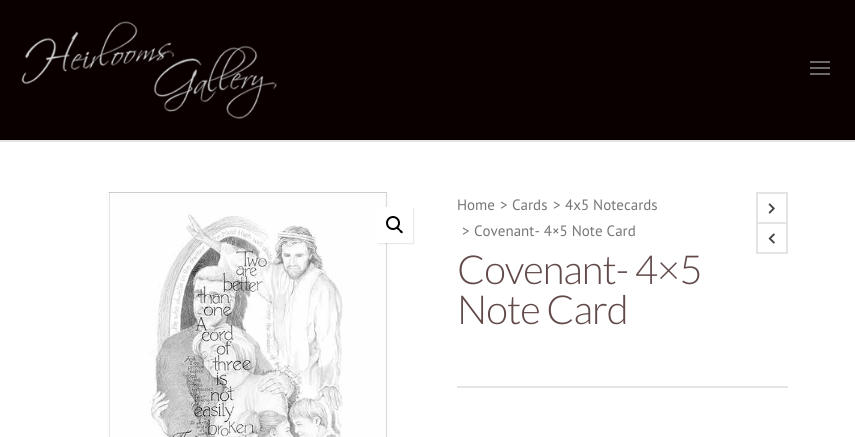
#include <cairo.h>
#include <math.h>
#include <stddef.h>

typedef struct { double x, y; const char *s; } line_t;
typedef struct { double x, y, w, h; unsigned color; } box_t;

static void ink(cairo_t *ctx, unsigned color) {
    cairo_set_source_rgb(ctx, (color >> 16) / 255.0, (color >> 8 & 255) / 255.0, (color & 255) / 255.0);
}

static void write_spaced(cairo_t *ctx, double x, double y, const char *s, double letter, double word) {
    cairo_move_to(ctx, x, y);
    while (*s) {
        char ch[5] = {0};
        int n = 0;
        do ch[n++] = *s++; while ((*s & 0xC0) == 0x80);
        cairo_show_text(ctx, ch);
        cairo_rel_move_to(ctx, letter + word * (*ch == ' '), 0);
    }
}

static void round_path(cairo_t *ctx, double x, double y, double w, double h, double r) {
    cairo_new_sub_path(ctx);
    cairo_arc(ctx, x + w - r, y + h - r, r, 0, M_PI / 2);
    cairo_arc(ctx, x + r, y + h - r, r, M_PI / 2, M_PI);
    cairo_arc(ctx, x + r, y + r, r, M_PI, 1.5 * M_PI);
    cairo_arc(ctx, x + w - r, y + r, r, 1.5 * M_PI, 2 * M_PI);
    cairo_close_path(ctx);
}

static void blur_box(cairo_t *ctx, double x, double y, double w, double h, double r, double blur, double alpha) {
    cairo_push_group_with_content(ctx, CAIRO_CONTENT_ALPHA);
    cairo_set_operator(ctx, CAIRO_OPERATOR_SOURCE);
    for (int i = 15; i >= -15 && fmin(w, h) + blur * i / 3 > 0; i -= 2) {
        double e = blur * i / 6;
        cairo_set_source_rgba(ctx, 0, 0, 0, alpha * erfc((i - 1) / 8.5) / 2);
        round_path(ctx, x - e, y - e, w + 2 * e, h + 2 * e, fmax(0, fmin(r + e + blur * .6, fmin(w, h) / 2 + e)));
        cairo_fill(ctx);
    }
    cairo_pattern_t *soft = cairo_pop_group(ctx);
    cairo_mask(ctx, soft);
    cairo_pattern_destroy(soft);
}

static void paste(cairo_t *ctx, const char *path, double x, double y, double w, double h) {
    cairo_surface_t *image = cairo_image_surface_create_from_png(path);
    cairo_save(ctx);
    cairo_set_source_surface(ctx, image, x, y);
    cairo_rectangle(ctx, x, y, w, h);
    cairo_fill(ctx);
    cairo_restore(ctx);
    cairo_surface_destroy(image);
}

int main(void) {
    cairo_surface_t *surface = cairo_image_surface_create(CAIRO_FORMAT_RGB24, 855, 437);
    cairo_t *ctx = cairo_create(surface);
    cairo_font_options_t *options = cairo_font_options_create();
    cairo_font_options_set_hint_metrics(options, CAIRO_HINT_METRICS_OFF);
    cairo_font_options_set_hint_style(options, CAIRO_HINT_STYLE_NONE);
    cairo_set_font_options(ctx, options);
    cairo_set_miter_limit(ctx, 4);
    ink(ctx, 0xFFFFFF);
    cairo_paint(ctx);
    ink(ctx, 0x0A0000);
    cairo_rectangle(ctx, 0, 0, 855, 140);
    cairo_fill(ctx);
    ink(ctx, 0xE4E4E4);
    cairo_rectangle(ctx, 0, 140, 855, 2);
    cairo_fill(ctx);
    paste(ctx, "media/1.png", 21, 21, 256, 98);
    {
        static const box_t items[] = {
            {810, 67, 20, 2, 0x6B6B6B},
            {810, 61, 20, 2, 0x6B6B6B},
            {810, 73, 20, 2, 0x6B6B6B},
        };
        for (size_t i = 0; i < sizeof items / sizeof *items; i++) {
            ink(ctx, items[i].color);
            cairo_rectangle(ctx, items[i].x, items[i].y, items[i].w, items[i].h);
            cairo_fill(ctx);
        }
    }
    paste(ctx, "media/2.png", 106, 192, 284, 245);
    ink(ctx, 0x000000);
    blur_box(ctx, 378, 208, 36, 36, 0, 0.5, 0.1);
    ink(ctx, 0xFFFFFF);
    cairo_rectangle(ctx, 377, 207, 36, 36);
    cairo_fill(ctx);
    cairo_arc(ctx, 393, 223, 6, 0, 2 * M_PI);
    ink(ctx, 0x000000);
    cairo_stroke(ctx);
    cairo_new_path(ctx);
    cairo_move_to(ctx, 396.5, 227);
    cairo_curve_to(ctx, 398, 226, 399.5, 228.5, 400, 229.5);
    cairo_curve_to(ctx, 401, 230, 403.5, 231.5, 402.5, 233);
    cairo_curve_to(ctx, 401, 234, 399.5, 231.5, 399, 230.5);
    cairo_curve_to(ctx, 398, 230, 395.5, 228.5, 396.5, 227);
    cairo_close_path(ctx);
    cairo_fill(ctx);
    ink(ctx, 0xE4E4E4);
    cairo_rectangle(ctx, 457, 386, 331, 2);
    cairo_fill(ctx);
    cairo_select_font_face(ctx, "PT Sans", CAIRO_FONT_SLANT_NORMAL, CAIRO_FONT_WEIGHT_NORMAL);
    cairo_set_font_size(ctx, 15);
    ink(ctx, 0x767676);
    {
        static const line_t items[] = {
            {457, 210, "Home"},
            {500, 210, ">"},
            {512, 210, "Cards"},
            {553, 210, ">"},
            {565, 210, "4x5 Notecards"},
            {462, 236, ">"},
            {474, 236, "Covenant- 4×5 Note Card"},
        };
        for (size_t i = 0; i < sizeof items / sizeof *items; i++) {
            cairo_move_to(ctx, items[i].x, items[i].y);
            cairo_show_text(ctx, items[i].s);
        }
    }
    cairo_rectangle(ctx, 757, 193, 30, 30);
    ink(ctx, 0xE4E4E4);
    cairo_stroke(ctx);
    paste(ctx, "media/3.png", 768, 203, 7, 11);
    cairo_rectangle(ctx, 757, 223, 30, 30);
    cairo_stroke(ctx);
    paste(ctx, "media/4.png", 768, 233, 7, 11);
    cairo_select_font_face(ctx, "Lato Light", CAIRO_FONT_SLANT_NORMAL, CAIRO_FONT_WEIGHT_NORMAL);
    cairo_set_font_size(ctx, 40);
    ink(ctx, 0x624A4A);
    write_spaced(ctx, 457, 284, "Covenant- 4×5", -1, 0);
    write_spaced(ctx, 457, 324, "Note Card", -1, 0);
    cairo_surface_write_to_png(surface, "image.png");
    cairo_font_options_destroy(options);
    cairo_destroy(ctx);
    cairo_surface_destroy(surface);
    return 0;
}
